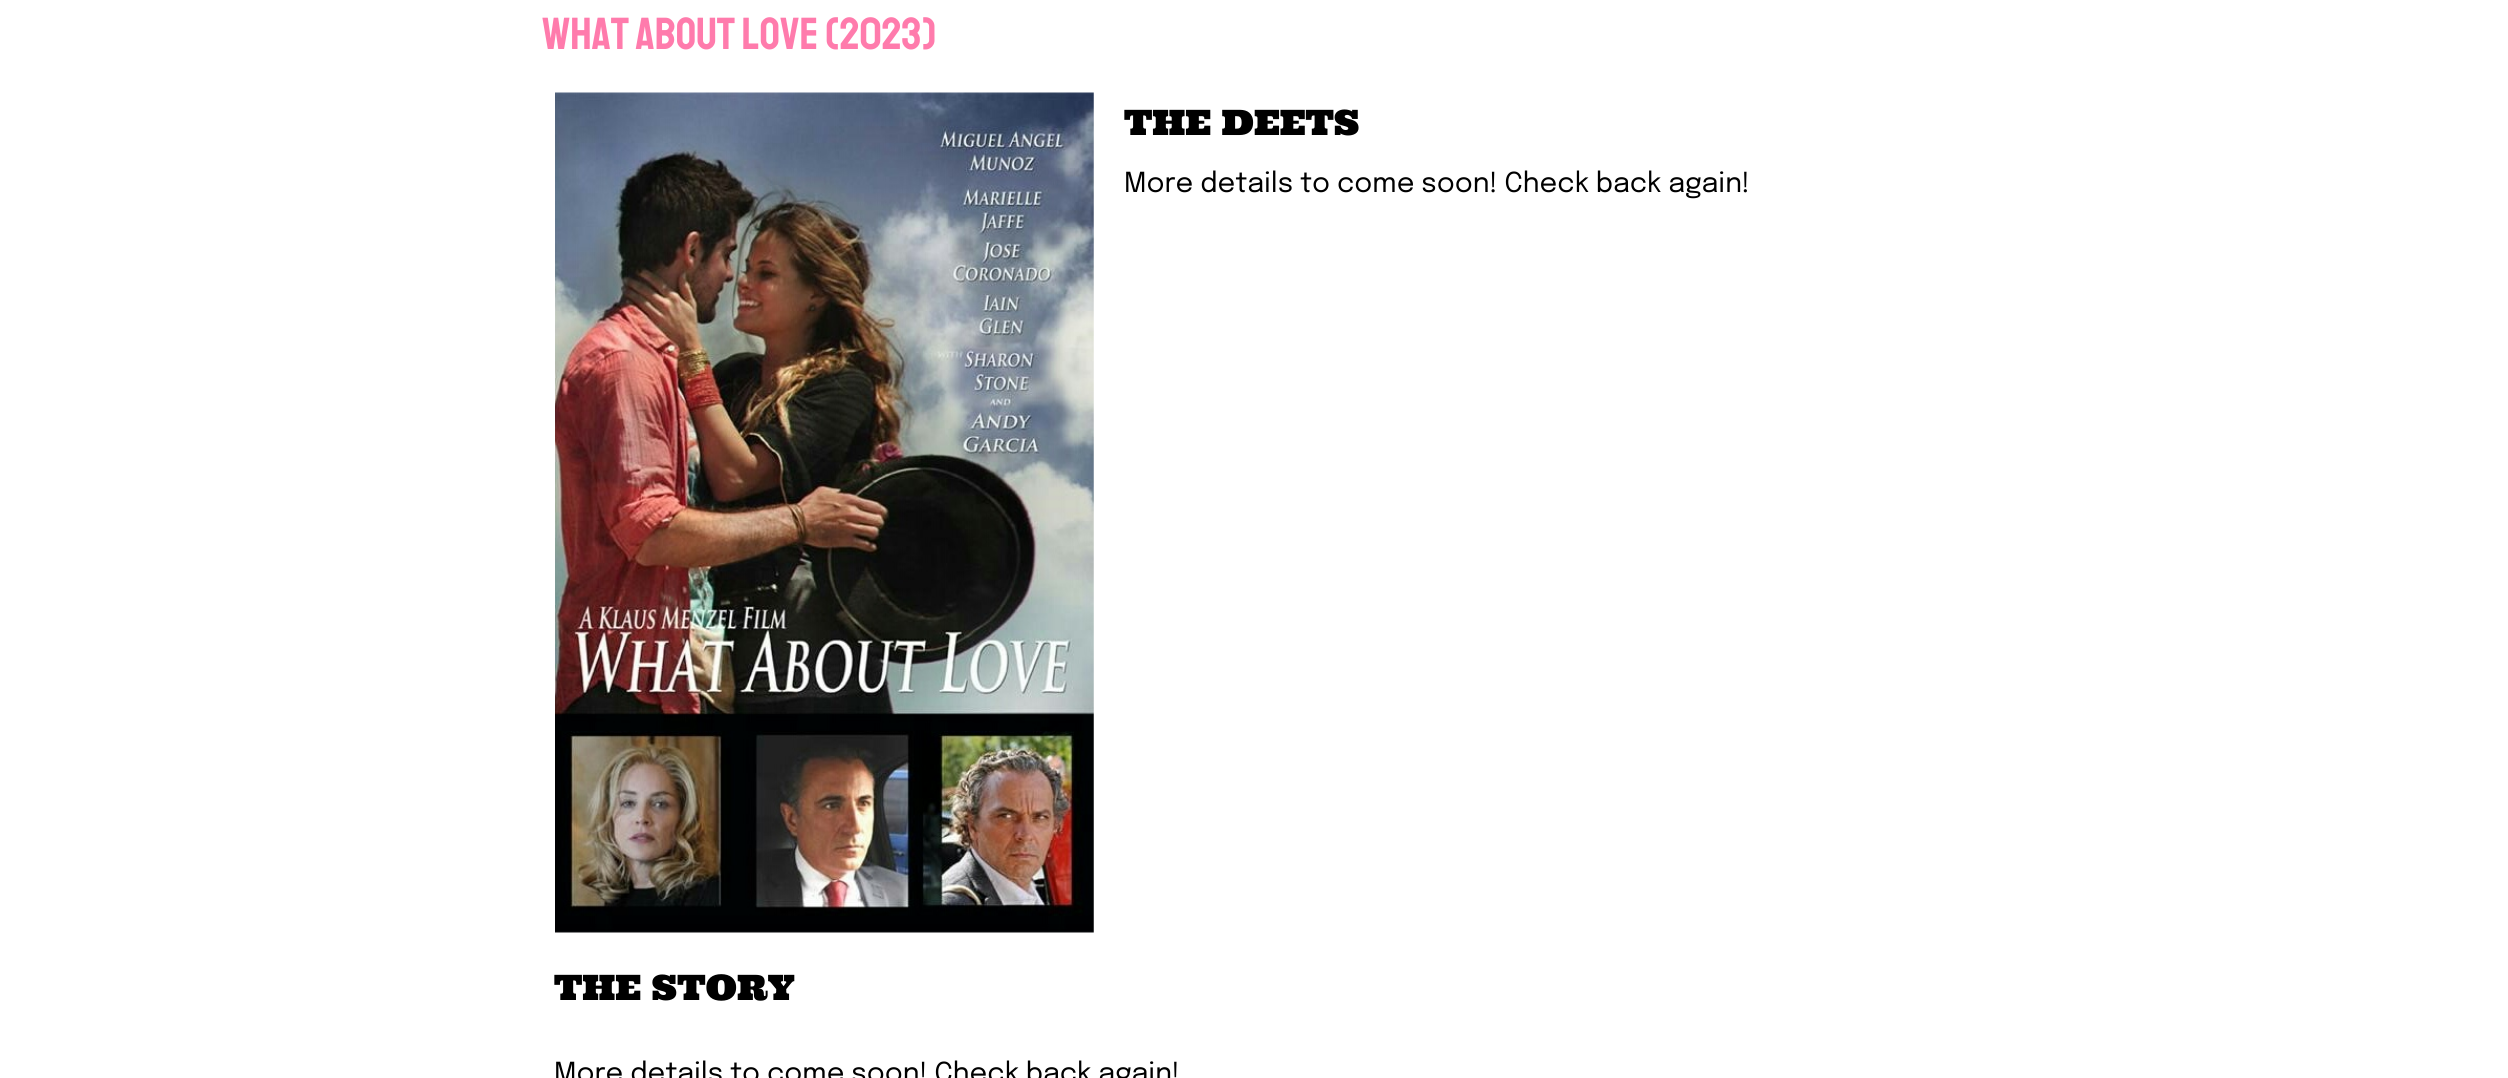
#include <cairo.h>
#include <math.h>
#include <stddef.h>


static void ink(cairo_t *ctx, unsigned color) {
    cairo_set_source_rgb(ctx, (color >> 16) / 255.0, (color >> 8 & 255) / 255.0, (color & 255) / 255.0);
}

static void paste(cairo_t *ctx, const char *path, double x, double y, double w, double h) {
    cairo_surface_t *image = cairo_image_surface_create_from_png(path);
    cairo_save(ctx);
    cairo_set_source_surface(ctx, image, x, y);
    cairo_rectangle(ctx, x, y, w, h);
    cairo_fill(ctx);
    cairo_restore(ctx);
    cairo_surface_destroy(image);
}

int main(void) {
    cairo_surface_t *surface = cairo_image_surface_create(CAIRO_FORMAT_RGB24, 2508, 1078);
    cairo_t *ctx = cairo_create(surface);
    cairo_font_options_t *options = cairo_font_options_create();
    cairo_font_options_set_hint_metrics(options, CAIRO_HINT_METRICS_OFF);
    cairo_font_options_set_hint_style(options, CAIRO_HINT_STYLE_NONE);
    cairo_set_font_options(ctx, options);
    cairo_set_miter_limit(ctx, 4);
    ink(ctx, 0xFFFFFF);
    cairo_paint(ctx);
    cairo_select_font_face(ctx, "Staatliches", CAIRO_FONT_SLANT_NORMAL, CAIRO_FONT_WEIGHT_NORMAL);
    cairo_set_font_size(ctx, 45);
    ink(ctx, 0xFF7BAC);
    cairo_move_to(ctx, 542, 49);
    cairo_show_text(ctx, "What About Love (2023)");
    paste(ctx, "media/1.png", 555, 92, 539, 841);
    cairo_select_font_face(ctx, "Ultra", CAIRO_FONT_SLANT_NORMAL, CAIRO_FONT_WEIGHT_NORMAL);
    cairo_set_font_size(ctx, 35);
    ink(ctx, 0x000000);
    cairo_move_to(ctx, 1124, 135);
    cairo_show_text(ctx, "THE DEETS");
    cairo_select_font_face(ctx, "Epilogue", CAIRO_FONT_SLANT_NORMAL, CAIRO_FONT_WEIGHT_NORMAL);
    cairo_set_font_size(ctx, 27.5);
    cairo_move_to(ctx, 1124, 192);
    cairo_show_text(ctx, "More details to come soon! Check back again!");
    cairo_select_font_face(ctx, "Ultra", CAIRO_FONT_SLANT_NORMAL, CAIRO_FONT_WEIGHT_NORMAL);
    cairo_set_font_size(ctx, 35);
    cairo_move_to(ctx, 554, 1000);
    cairo_show_text(ctx, "THE STORY");
    cairo_select_font_face(ctx, "Epilogue", CAIRO_FONT_SLANT_NORMAL, CAIRO_FONT_WEIGHT_NORMAL);
    cairo_set_font_size(ctx, 27.5);
    cairo_move_to(ctx, 554, 1082);
    cairo_show_text(ctx, "More details to come soon! Check back again!");
    cairo_surface_write_to_png(surface, "image.png");
    cairo_font_options_destroy(options);
    cairo_destroy(ctx);
    cairo_surface_destroy(surface);
    return 0;
}
